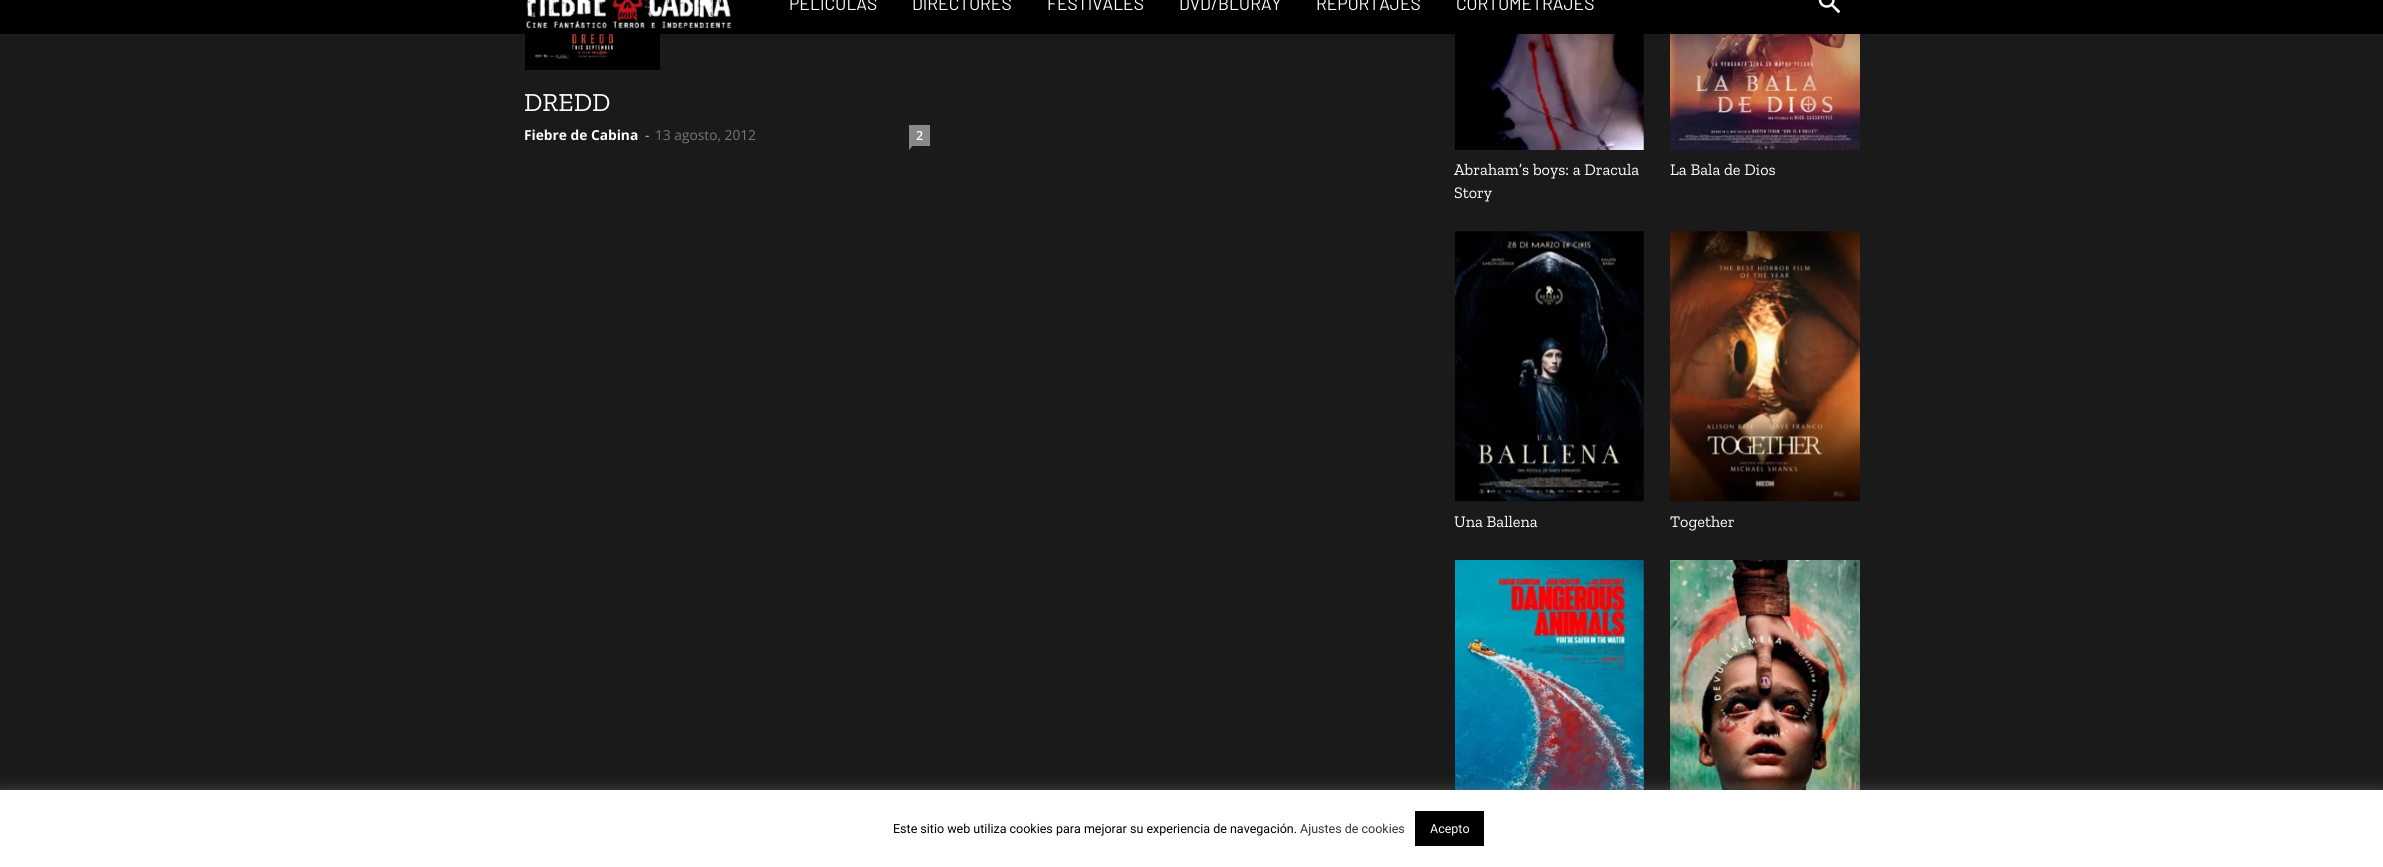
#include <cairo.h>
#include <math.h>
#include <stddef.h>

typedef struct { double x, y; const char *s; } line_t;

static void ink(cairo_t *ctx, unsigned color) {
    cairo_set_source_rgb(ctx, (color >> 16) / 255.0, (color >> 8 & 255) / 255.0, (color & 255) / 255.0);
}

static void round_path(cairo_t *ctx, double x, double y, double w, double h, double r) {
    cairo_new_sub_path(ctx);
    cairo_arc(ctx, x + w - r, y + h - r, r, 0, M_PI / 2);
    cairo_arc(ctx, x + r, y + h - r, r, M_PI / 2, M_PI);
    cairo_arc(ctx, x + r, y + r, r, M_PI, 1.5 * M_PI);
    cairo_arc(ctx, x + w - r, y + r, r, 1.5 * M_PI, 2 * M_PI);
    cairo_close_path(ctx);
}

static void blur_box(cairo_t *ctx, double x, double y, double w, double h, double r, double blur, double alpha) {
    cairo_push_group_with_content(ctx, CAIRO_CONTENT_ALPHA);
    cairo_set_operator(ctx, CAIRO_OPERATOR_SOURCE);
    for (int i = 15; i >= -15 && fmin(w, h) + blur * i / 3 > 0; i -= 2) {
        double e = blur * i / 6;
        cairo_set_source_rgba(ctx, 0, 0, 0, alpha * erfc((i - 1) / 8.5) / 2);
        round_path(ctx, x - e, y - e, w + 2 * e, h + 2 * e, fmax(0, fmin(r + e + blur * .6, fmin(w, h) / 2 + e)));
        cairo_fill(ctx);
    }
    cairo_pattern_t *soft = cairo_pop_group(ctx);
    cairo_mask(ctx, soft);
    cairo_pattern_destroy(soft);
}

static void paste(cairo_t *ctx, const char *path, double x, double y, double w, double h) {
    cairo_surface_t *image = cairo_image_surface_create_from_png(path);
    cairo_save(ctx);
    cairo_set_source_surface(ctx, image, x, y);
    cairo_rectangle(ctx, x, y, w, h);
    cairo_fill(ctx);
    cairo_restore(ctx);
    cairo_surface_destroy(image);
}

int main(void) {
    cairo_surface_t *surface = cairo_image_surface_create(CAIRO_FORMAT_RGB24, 2383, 867);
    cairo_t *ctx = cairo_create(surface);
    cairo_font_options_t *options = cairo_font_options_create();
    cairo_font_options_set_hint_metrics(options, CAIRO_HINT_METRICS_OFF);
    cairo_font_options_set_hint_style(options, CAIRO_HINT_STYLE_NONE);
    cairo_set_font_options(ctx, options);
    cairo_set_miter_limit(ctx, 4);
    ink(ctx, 0x1A1A1A);
    cairo_paint(ctx);
    ink(ctx, 0x000000);
    cairo_rectangle(ctx, 0, 0, 2383, 34);
    cairo_fill(ctx);
    paste(ctx, "media/1.png", 526, 0, 205, 29);
    cairo_select_font_face(ctx, "Barlow", CAIRO_FONT_SLANT_NORMAL, CAIRO_FONT_WEIGHT_NORMAL);
    cairo_set_font_size(ctx, 17.5);
    ink(ctx, 0xFFFFFF);
    {
        static const line_t items[] = {
            {789, 10, "PELÍCULAS"},
            {912, 10, "DIRECTORES"},
            {1047, 10, "FESTIVALES"},
            {1179, 10, "DVD/BLURAY"},
            {1316, 10, "REPORTAJES"},
            {1456, 10, "CORTOMETRAJES"},
        };
        for (size_t i = 0; i < sizeof items / sizeof *items; i++) {
            cairo_move_to(ctx, items[i].x, items[i].y);
            cairo_show_text(ctx, items[i].s);
        }
    }
    paste(ctx, "media/2.png", 1818, 0, 22, 13);
    paste(ctx, "media/4.png", 525, 34, 135, 36);
    paste(ctx, "media/5.png", 1455, 34, 189, 116);
    paste(ctx, "media/6.png", 1670, 34, 190, 116);
    paste(ctx, "media/3.png", 572, 34, 1288, 10);
    cairo_select_font_face(ctx, "Zilla Slab", CAIRO_FONT_SLANT_NORMAL, CAIRO_FONT_WEIGHT_NORMAL);
    cairo_set_font_size(ctx, 26);
    cairo_move_to(ctx, 524, 111);
    cairo_show_text(ctx, "DREDD");
    cairo_select_font_face(ctx, "Open Sans", CAIRO_FONT_SLANT_NORMAL, CAIRO_FONT_WEIGHT_BOLD);
    cairo_set_font_size(ctx, 13.75);
    cairo_move_to(ctx, 524, 140);
    cairo_show_text(ctx, "Fiebre de Cabina");
    cairo_select_font_face(ctx, "Open Sans", CAIRO_FONT_SLANT_NORMAL, CAIRO_FONT_WEIGHT_NORMAL);
    ink(ctx, 0xCCCCCC);
    cairo_move_to(ctx, 645, 140);
    cairo_show_text(ctx, "-");
    ink(ctx, 0x767676);
    cairo_move_to(ctx, 655, 140);
    cairo_show_text(ctx, "13 agosto, 2012");
    ink(ctx, 0x888888);
    cairo_rectangle(ctx, 909, 125, 21, 21);
    cairo_fill(ctx);
    cairo_select_font_face(ctx, "Open Sans SemiBold", CAIRO_FONT_SLANT_NORMAL, CAIRO_FONT_WEIGHT_NORMAL);
    cairo_set_font_size(ctx, 12.5);
    ink(ctx, 0xFFFFFF);
    cairo_move_to(ctx, 916, 140);
    cairo_show_text(ctx, "2");
    ink(ctx, 0x888888);
    cairo_new_path(ctx);
    cairo_move_to(ctx, 909, 146);
    cairo_line_to(ctx, 912.5, 146);
    cairo_line_to(ctx, 909, 150);
    cairo_close_path(ctx);
    cairo_fill(ctx);
    cairo_select_font_face(ctx, "Zilla Slab", CAIRO_FONT_SLANT_NORMAL, CAIRO_FONT_WEIGHT_NORMAL);
    cairo_set_font_size(ctx, 16.25);
    ink(ctx, 0xFFFFFF);
    {
        static const line_t items[] = {
            {1454, 175, "Abraham’s boys: a Dracula"},
            {1454, 198, "Story"},
            {1670, 175, "La Bala de Dios"},
        };
        for (size_t i = 0; i < sizeof items / sizeof *items; i++) {
            cairo_move_to(ctx, items[i].x, items[i].y);
            cairo_show_text(ctx, items[i].s);
        }
    }
    paste(ctx, "media/7.png", 1455, 231, 189, 271);
    cairo_move_to(ctx, 1454, 527);
    cairo_show_text(ctx, "Una Ballena");
    paste(ctx, "media/8.png", 1670, 231, 190, 271);
    cairo_move_to(ctx, 1670, 527);
    cairo_show_text(ctx, "Together");
    paste(ctx, "media/9.png", 1455, 560, 189, 230);
    paste(ctx, "media/10.png", 1670, 560, 190, 230);
    ink(ctx, 0xACABAB);
    blur_box(ctx, 0, 789, 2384, 77, 0, 6, 0.3);
    ink(ctx, 0xFFFFFF);
    cairo_rectangle(ctx, 0, 790, 2383, 77);
    cairo_fill(ctx);
    cairo_select_font_face(ctx, "Roboto", CAIRO_FONT_SLANT_NORMAL, CAIRO_FONT_WEIGHT_NORMAL);
    cairo_set_font_size(ctx, 12.5);
    ink(ctx, 0x000000);
    cairo_move_to(ctx, 893, 833);
    cairo_show_text(ctx, "Este sitio web utiliza cookies para mejorar su experiencia de navegación.");
    ink(ctx, 0x333333);
    cairo_move_to(ctx, 1300, 833);
    cairo_show_text(ctx, "Ajustes de cookies");
    ink(ctx, 0x000000);
    cairo_rectangle(ctx, 1415, 811, 69, 35);
    cairo_fill(ctx);
    ink(ctx, 0xFFFFFF);
    cairo_move_to(ctx, 1430, 833);
    cairo_show_text(ctx, "Acepto");
    cairo_surface_write_to_png(surface, "image.png");
    cairo_font_options_destroy(options);
    cairo_destroy(ctx);
    cairo_surface_destroy(surface);
    return 0;
}
